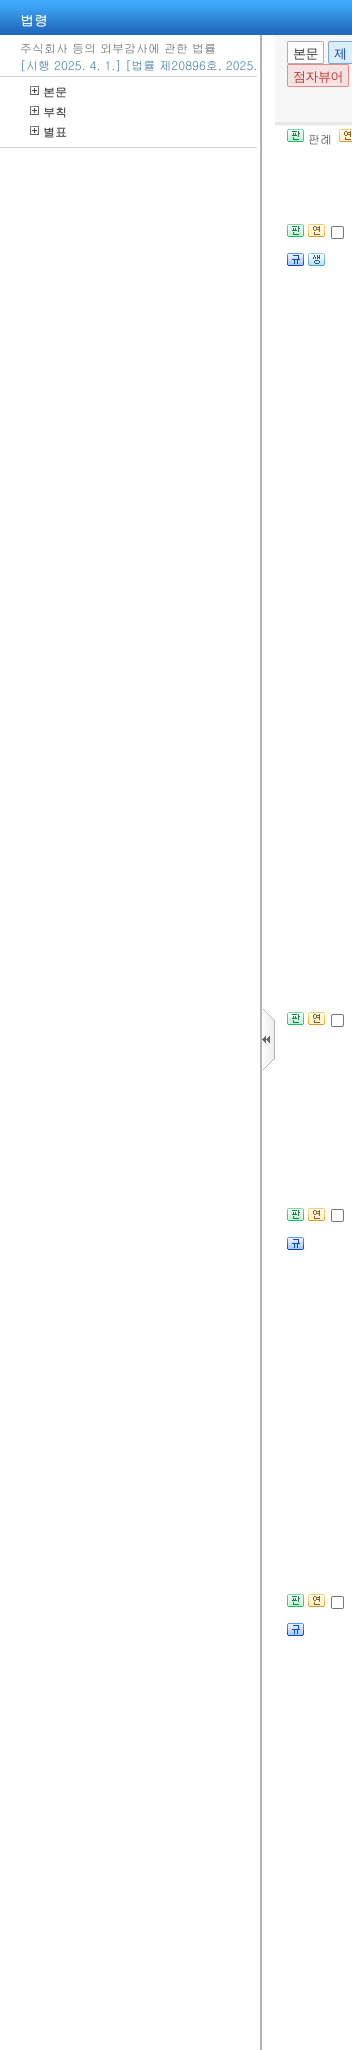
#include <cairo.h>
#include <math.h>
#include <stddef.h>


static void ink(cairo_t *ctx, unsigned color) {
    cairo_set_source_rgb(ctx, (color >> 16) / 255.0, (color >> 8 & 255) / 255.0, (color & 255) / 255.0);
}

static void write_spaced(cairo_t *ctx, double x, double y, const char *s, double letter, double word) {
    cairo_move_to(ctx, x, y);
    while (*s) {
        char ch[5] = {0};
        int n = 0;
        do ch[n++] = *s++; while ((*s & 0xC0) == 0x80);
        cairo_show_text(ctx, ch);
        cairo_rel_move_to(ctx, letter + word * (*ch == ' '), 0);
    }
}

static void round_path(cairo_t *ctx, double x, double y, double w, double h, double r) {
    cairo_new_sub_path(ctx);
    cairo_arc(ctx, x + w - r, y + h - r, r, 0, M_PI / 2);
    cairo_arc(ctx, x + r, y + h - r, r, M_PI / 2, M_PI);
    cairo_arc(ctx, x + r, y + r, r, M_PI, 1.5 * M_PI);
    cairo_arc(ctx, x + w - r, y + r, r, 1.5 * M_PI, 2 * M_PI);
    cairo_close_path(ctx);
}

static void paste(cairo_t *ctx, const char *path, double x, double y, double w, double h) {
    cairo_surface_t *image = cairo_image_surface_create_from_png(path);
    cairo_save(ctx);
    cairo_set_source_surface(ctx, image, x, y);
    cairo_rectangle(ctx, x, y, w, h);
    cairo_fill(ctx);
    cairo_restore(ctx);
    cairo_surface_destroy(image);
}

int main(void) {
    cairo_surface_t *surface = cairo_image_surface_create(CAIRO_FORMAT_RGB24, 352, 2050);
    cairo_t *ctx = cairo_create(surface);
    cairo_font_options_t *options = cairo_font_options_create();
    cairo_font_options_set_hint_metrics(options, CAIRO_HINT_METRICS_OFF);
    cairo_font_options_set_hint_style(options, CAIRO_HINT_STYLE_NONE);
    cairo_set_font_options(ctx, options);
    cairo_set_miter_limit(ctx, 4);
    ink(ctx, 0xFFFFFF);
    cairo_paint(ctx);
    ink(ctx, 0xB4B4B4);
    cairo_rectangle(ctx, 260, 34, 2, 2016);
    cairo_fill(ctx);
    paste(ctx, "media/1.png", 0, 0, 352, 35);
    cairo_select_font_face(ctx, "Gulim", CAIRO_FONT_SLANT_NORMAL, CAIRO_FONT_WEIGHT_BOLD);
    cairo_set_font_size(ctx, 14);
    ink(ctx, 0xFFFFFF);
    cairo_move_to(ctx, 20, 26);
    cairo_show_text(ctx, "법령");
    ink(ctx, 0xD4D4D4);
    cairo_rectangle(ctx, 0, 147, 257, 1);
    cairo_fill(ctx);
    cairo_select_font_face(ctx, "Gulim", CAIRO_FONT_SLANT_NORMAL, CAIRO_FONT_WEIGHT_NORMAL);
    cairo_set_font_size(ctx, 12);
    ink(ctx, 0x666666);
    cairo_move_to(ctx, 20, 53);
    cairo_show_text(ctx, "주식회사 등의 외부감사에 관한 법률");
    ink(ctx, 0x3C7AAC);
    cairo_move_to(ctx, 20, 70);
    cairo_show_text(ctx, "[시행 2025. 4. 1.] [법률 제20896호, 2025.");
    ink(ctx, 0xD4D4D4);
    cairo_rectangle(ctx, 0, 76, 257, 1);
    cairo_fill(ctx);
    paste(ctx, "media/2.png", 30, 86, 9, 9);
    cairo_select_font_face(ctx, "Gulim", CAIRO_FONT_SLANT_NORMAL, CAIRO_FONT_WEIGHT_BOLD);
    ink(ctx, 0x444444);
    cairo_move_to(ctx, 43, 97);
    cairo_show_text(ctx, "본문");
    paste(ctx, "media/2.png", 30, 106, 9, 9);
    cairo_move_to(ctx, 43, 117);
    cairo_show_text(ctx, "부칙");
    paste(ctx, "media/2.png", 30, 126, 9, 9);
    cairo_move_to(ctx, 43, 137);
    cairo_show_text(ctx, "별표");
    ink(ctx, 0xF7F7F7);
    cairo_rectangle(ctx, 275, 35, 77, 91);
    cairo_fill(ctx);
    ink(ctx, 0xE8E8E8);
    cairo_rectangle(ctx, 275, 122, 77, 3);
    cairo_fill(ctx);
    ink(ctx, 0xFFFFFF);
    round_path(ctx, 287.5, 41.5, 36, 22, 1.5);
    cairo_fill_preserve(ctx);
    ink(ctx, 0xAFAFAF);
    cairo_set_line_width(ctx, 1);
    cairo_stroke(ctx);
    cairo_select_font_face(ctx, "WenQuanYi Zen Hei Medium", CAIRO_FONT_SLANT_NORMAL, CAIRO_FONT_WEIGHT_NORMAL);
    cairo_set_font_size(ctx, 13);
    ink(ctx, 0x333333);
    write_spaced(ctx, 293, 58, "본문", -0.5, 0);
    ink(ctx, 0xD9EFFD);
    round_path(ctx, 328.5, 41.5, 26, 22, 1.5);
    cairo_fill_preserve(ctx);
    ink(ctx, 0x81A2DF);
    cairo_stroke(ctx);
    ink(ctx, 0x0D41AB);
    write_spaced(ctx, 334, 58, "제", -0.5, 0);
    ink(ctx, 0xF7E2E2);
    round_path(ctx, 287.5, 64.5, 61, 22, 1.5);
    cairo_fill_preserve(ctx);
    ink(ctx, 0xE28D8D);
    cairo_stroke(ctx);
    ink(ctx, 0xC13535);
    write_spaced(ctx, 293, 81, "점자뷰어", -0.5, 0);
    paste(ctx, "media/3.png", 287, 129, 17, 13);
    cairo_select_font_face(ctx, "Gulim", CAIRO_FONT_SLANT_NORMAL, CAIRO_FONT_WEIGHT_NORMAL);
    cairo_set_font_size(ctx, 12);
    ink(ctx, 0x444444);
    cairo_move_to(ctx, 308, 144);
    cairo_show_text(ctx, "판례");
    paste(ctx, "media/4.png", 339, 129, 13, 13);
    paste(ctx, "media/3.png", 287, 224, 17, 13);
    paste(ctx, "media/5.png", 308, 224, 17, 13);
    paste(ctx, "media/6.png", 287, 253, 17, 13);
    paste(ctx, "media/7.png", 308, 253, 17, 13);
    round_path(ctx, 331.5, 226.5, 12, 12, 1.5);
    ink(ctx, 0x767676);
    cairo_stroke(ctx);
    paste(ctx, "media/3.png", 287, 1012, 17, 13);
    paste(ctx, "media/5.png", 308, 1012, 17, 13);
    round_path(ctx, 331.5, 1014.5, 12, 12, 1.5);
    cairo_stroke(ctx);
    paste(ctx, "media/3.png", 287, 1208, 17, 13);
    paste(ctx, "media/5.png", 308, 1208, 17, 13);
    paste(ctx, "media/6.png", 287, 1237, 17, 13);
    round_path(ctx, 331.5, 1209.5, 12, 12, 1.5);
    cairo_stroke(ctx);
    paste(ctx, "media/3.png", 287, 1594, 17, 13);
    paste(ctx, "media/5.png", 308, 1594, 17, 13);
    paste(ctx, "media/6.png", 287, 1623, 17, 13);
    round_path(ctx, 331.5, 1596.5, 12, 12, 1.5);
    cairo_stroke(ctx);
    paste(ctx, "media/8.png", 262, 1009, 13, 61);
    cairo_surface_write_to_png(surface, "image.png");
    cairo_font_options_destroy(options);
    cairo_destroy(ctx);
    cairo_surface_destroy(surface);
    return 0;
}
